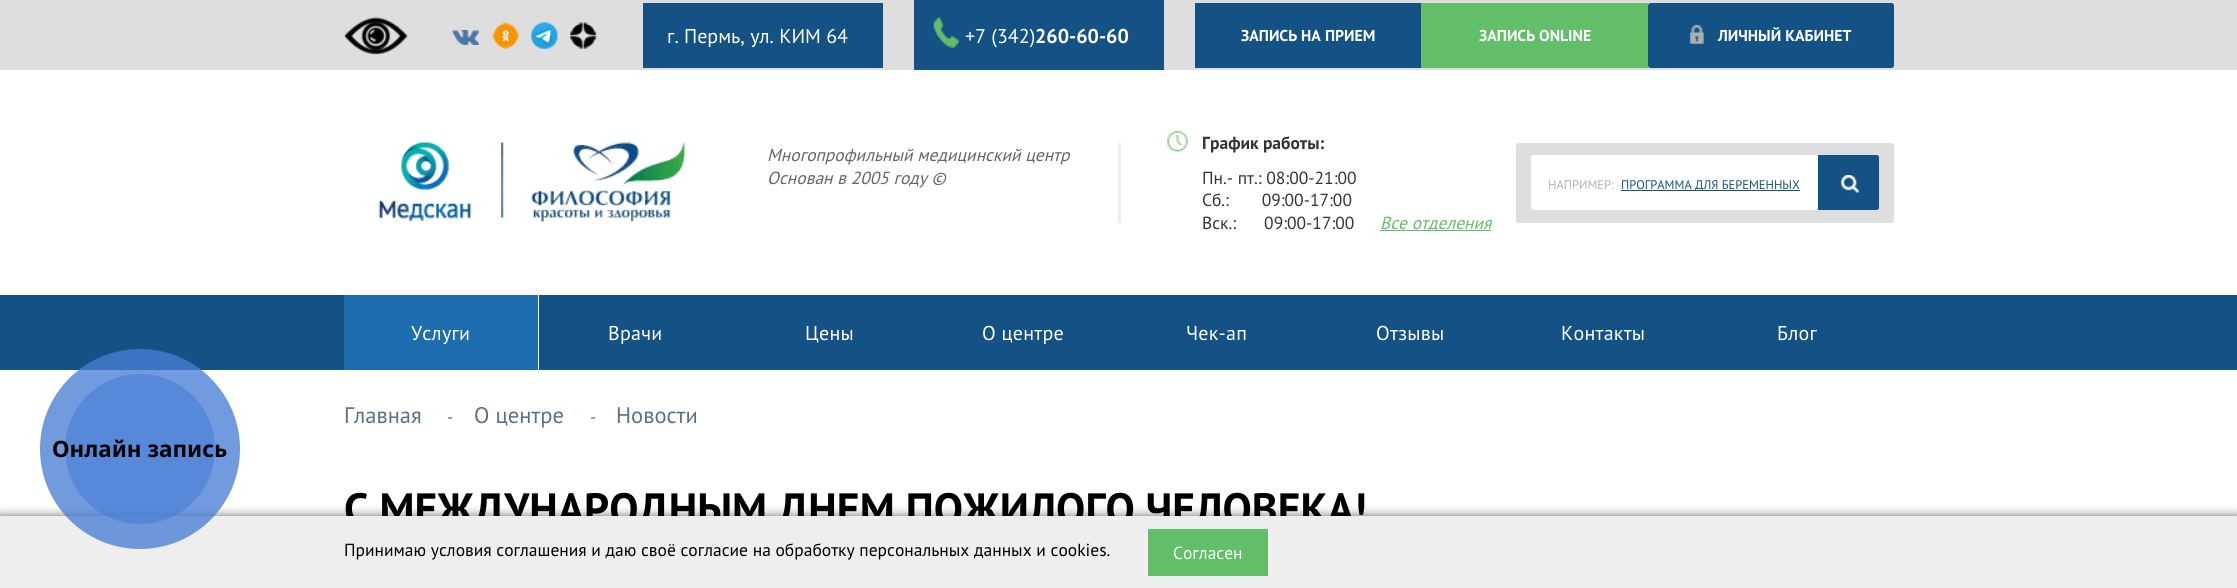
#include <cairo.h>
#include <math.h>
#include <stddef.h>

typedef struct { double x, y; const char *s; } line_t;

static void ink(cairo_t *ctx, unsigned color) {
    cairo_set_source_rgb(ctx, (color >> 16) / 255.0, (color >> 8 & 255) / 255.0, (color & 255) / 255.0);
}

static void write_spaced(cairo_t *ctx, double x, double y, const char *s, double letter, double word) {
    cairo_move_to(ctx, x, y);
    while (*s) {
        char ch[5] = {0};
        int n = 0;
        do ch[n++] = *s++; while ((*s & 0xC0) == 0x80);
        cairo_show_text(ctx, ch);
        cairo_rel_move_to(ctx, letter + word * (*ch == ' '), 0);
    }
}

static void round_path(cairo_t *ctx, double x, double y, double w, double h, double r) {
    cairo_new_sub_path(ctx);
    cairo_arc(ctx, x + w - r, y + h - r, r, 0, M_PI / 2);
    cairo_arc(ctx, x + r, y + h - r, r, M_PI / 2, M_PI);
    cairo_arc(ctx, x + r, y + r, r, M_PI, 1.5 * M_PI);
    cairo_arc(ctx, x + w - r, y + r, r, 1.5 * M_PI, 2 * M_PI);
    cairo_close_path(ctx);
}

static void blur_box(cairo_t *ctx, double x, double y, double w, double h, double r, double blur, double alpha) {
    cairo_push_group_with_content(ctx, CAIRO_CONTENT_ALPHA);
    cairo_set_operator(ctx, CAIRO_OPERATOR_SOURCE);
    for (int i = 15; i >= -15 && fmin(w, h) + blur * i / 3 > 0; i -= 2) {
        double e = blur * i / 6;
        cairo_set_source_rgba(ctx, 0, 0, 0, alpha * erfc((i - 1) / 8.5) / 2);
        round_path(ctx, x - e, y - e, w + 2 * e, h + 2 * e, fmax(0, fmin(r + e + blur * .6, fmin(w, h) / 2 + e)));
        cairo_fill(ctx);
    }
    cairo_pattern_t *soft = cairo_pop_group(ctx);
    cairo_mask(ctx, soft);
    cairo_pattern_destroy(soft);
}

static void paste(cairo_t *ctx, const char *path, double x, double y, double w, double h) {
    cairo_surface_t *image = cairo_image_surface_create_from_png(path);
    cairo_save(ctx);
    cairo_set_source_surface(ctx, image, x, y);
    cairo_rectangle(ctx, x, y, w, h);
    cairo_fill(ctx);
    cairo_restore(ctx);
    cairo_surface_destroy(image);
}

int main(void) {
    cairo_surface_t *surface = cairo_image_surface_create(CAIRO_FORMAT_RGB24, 2237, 588);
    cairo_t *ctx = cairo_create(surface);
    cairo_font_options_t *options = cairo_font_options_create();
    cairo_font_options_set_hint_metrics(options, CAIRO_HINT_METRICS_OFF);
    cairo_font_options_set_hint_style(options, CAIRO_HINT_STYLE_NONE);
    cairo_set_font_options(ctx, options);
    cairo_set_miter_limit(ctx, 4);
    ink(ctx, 0xFFFFFF);
    cairo_paint(ctx);
    ink(ctx, 0x666666);
    blur_box(ctx, 0, 516, 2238, 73, 0, 5, 1);
    cairo_select_font_face(ctx, "PT Sans", CAIRO_FONT_SLANT_NORMAL, CAIRO_FONT_WEIGHT_BOLD);
    cairo_set_font_size(ctx, 43.75);
    ink(ctx, 0x000000);
    cairo_move_to(ctx, 344, 524);
    cairo_show_text(ctx, "С МЕЖДУНАРОДНЫМ ДНЕМ ПОЖИЛОГО ЧЕЛОВЕКА!");
    ink(ctx, 0xEEEEEE);
    cairo_rectangle(ctx, 0, 516, 2237, 72);
    cairo_fill(ctx);
    cairo_set_source_rgba(ctx, 0.282, 0.494, 0.835, 0.62);
    cairo_arc(ctx, 140, 449, 75, 0, 2 * M_PI);
    cairo_fill(ctx);
    ink(ctx, 0x145285);
    cairo_rectangle(ctx, 0, 295, 2237, 75);
    cairo_fill(ctx);
    cairo_set_source_rgba(ctx, 0.282, 0.494, 0.835, 0.77);
    cairo_arc(ctx, 140, 449, 100, 0, 2 * M_PI);
    cairo_fill(ctx);
    cairo_select_font_face(ctx, "Noto Sans", CAIRO_FONT_SLANT_NORMAL, CAIRO_FONT_WEIGHT_BOLD);
    cairo_set_font_size(ctx, 22.5);
    ink(ctx, 0x000000);
    cairo_move_to(ctx, 52, 457);
    cairo_show_text(ctx, "Онлайн запись");
    ink(ctx, 0xDEDEDE);
    cairo_rectangle(ctx, 0, 0, 2237, 70);
    cairo_fill(ctx);
    paste(ctx, "media/1.png", 344, 17, 64, 38);
    paste(ctx, "media/2.png", 452, 30, 28, 15);
    paste(ctx, "media/3.png", 492, 22, 27, 27);
    paste(ctx, "media/4.png", 531, 22, 27, 27);
    paste(ctx, "media/5.png", 570, 22, 27, 27);
    ink(ctx, 0x145285);
    cairo_rectangle(ctx, 643, 3, 240, 65);
    cairo_fill(ctx);
    cairo_select_font_face(ctx, "PT Sans", CAIRO_FONT_SLANT_NORMAL, CAIRO_FONT_WEIGHT_NORMAL);
    cairo_set_font_size(ctx, 20);
    ink(ctx, 0xFFFFFF);
    cairo_move_to(ctx, 667, 43);
    cairo_show_text(ctx, "г. Пермь, ул. КИМ 64");
    ink(ctx, 0x145285);
    cairo_rectangle(ctx, 914, 0, 250, 70);
    cairo_fill(ctx);
    paste(ctx, "media/6.png", 933, 17, 26, 31);
    ink(ctx, 0xFFFFFF);
    cairo_move_to(ctx, 965, 43);
    cairo_show_text(ctx, "+7 (342)");
    cairo_select_font_face(ctx, "PT Sans", CAIRO_FONT_SLANT_NORMAL, CAIRO_FONT_WEIGHT_BOLD);
    cairo_move_to(ctx, 1035, 43);
    cairo_show_text(ctx, "260-60-60");
    ink(ctx, 0x145285);
    cairo_rectangle(ctx, 1195, 3, 226, 65);
    cairo_fill(ctx);
    cairo_set_font_size(ctx, 15.75);
    ink(ctx, 0xFFFFFF);
    cairo_move_to(ctx, 1241, 41);
    cairo_show_text(ctx, "ЗАПИСЬ НА ПРИЕМ");
    ink(ctx, 0x62BE69);
    cairo_rectangle(ctx, 1421, 3, 227, 65);
    cairo_fill(ctx);
    ink(ctx, 0xFFFFFF);
    cairo_move_to(ctx, 1479, 41);
    cairo_show_text(ctx, "ЗАПИСЬ ONLINE");
    ink(ctx, 0x145285);
    round_path(ctx, 1649.5, 4.5, 243, 62, 1);
    cairo_fill_preserve(ctx);
    cairo_set_line_width(ctx, 3);
    cairo_stroke(ctx);
    paste(ctx, "media/7.png", 1689, 25, 15, 19);
    ink(ctx, 0xFFFFFF);
    cairo_move_to(ctx, 1718, 41);
    cairo_show_text(ctx, "ЛИЧНЫЙ КАБИНЕТ");
    paste(ctx, "media/8.png", 378, 142, 308, 80);
    cairo_select_font_face(ctx, "PT Sans", CAIRO_FONT_SLANT_ITALIC, CAIRO_FONT_WEIGHT_NORMAL);
    cairo_set_font_size(ctx, 17.5);
    ink(ctx, 0x666666);
    cairo_move_to(ctx, 767, 161);
    cairo_show_text(ctx, "Многопрофильный медицинский центр");
    cairo_move_to(ctx, 767, 184);
    cairo_show_text(ctx, "Основан в 2005 году ©");
    ink(ctx, 0xEDEDED);
    cairo_rectangle(ctx, 1118, 143, 3, 80);
    cairo_fill(ctx);
    paste(ctx, "media/9.png", 1167, 131, 21, 21);
    cairo_select_font_face(ctx, "PT Sans", CAIRO_FONT_SLANT_NORMAL, CAIRO_FONT_WEIGHT_BOLD);
    ink(ctx, 0x333333);
    cairo_move_to(ctx, 1202, 149);
    cairo_show_text(ctx, "График работы:");
    cairo_select_font_face(ctx, "PT Sans", CAIRO_FONT_SLANT_NORMAL, CAIRO_FONT_WEIGHT_NORMAL);
    {
        static const line_t items[] = {
            {1202, 184, "Пн.- пт.: 08:00-21:00"},
            {1202, 206, "Сб.:       09:00-17:00"},
            {1202, 229, "Вск.:      09:00-17:00"},
        };
        for (size_t i = 0; i < sizeof items / sizeof *items; i++) {
            cairo_move_to(ctx, items[i].x, items[i].y);
            cairo_show_text(ctx, items[i].s);
        }
    }
    ink(ctx, 0x62BE69);
    cairo_rectangle(ctx, 1380, 230, 111, 1);
    cairo_fill(ctx);
    cairo_select_font_face(ctx, "PT Sans", CAIRO_FONT_SLANT_ITALIC, CAIRO_FONT_WEIGHT_NORMAL);
    cairo_move_to(ctx, 1380, 229);
    cairo_show_text(ctx, "Все отделения");
    ink(ctx, 0xDEDEDE);
    round_path(ctx, 1516, 143, 378, 80, 2.5);
    cairo_fill(ctx);
    ink(ctx, 0xFFFFFF);
    round_path(ctx, 1531, 155, 287, 55, 2.5);
    cairo_fill(ctx);
    ink(ctx, 0x145285);
    cairo_new_path(ctx);
    cairo_move_to(ctx, 1818, 155);
    cairo_line_to(ctx, 1876.5, 155);
    cairo_curve_to(ctx, 1878, 155, 1879, 156, 1879, 157.5);
    cairo_line_to(ctx, 1879, 207.5);
    cairo_curve_to(ctx, 1879, 209, 1878, 210, 1876.5, 210);
    cairo_line_to(ctx, 1818, 210);
    cairo_close_path(ctx);
    cairo_fill(ctx);
    paste(ctx, "media/10.png", 1841, 175, 18, 18);
    cairo_select_font_face(ctx, "PT Sans", CAIRO_FONT_SLANT_NORMAL, CAIRO_FONT_WEIGHT_NORMAL);
    cairo_set_font_size(ctx, 12.5);
    ink(ctx, 0xB2B2B2);
    cairo_move_to(ctx, 1548, 189);
    cairo_show_text(ctx, "НАПРИМЕР:");
    ink(ctx, 0x145285);
    cairo_rectangle(ctx, 1621, 190, 179, 1);
    cairo_fill(ctx);
    cairo_move_to(ctx, 1621, 189);
    cairo_show_text(ctx, "ПРОГРАММА ДЛЯ БЕРЕМЕННЫХ");
    ink(ctx, 0x1E6DAE);
    cairo_rectangle(ctx, 344, 295, 194, 75);
    cairo_fill(ctx);
    ink(ctx, 0xFFFFFF);
    cairo_rectangle(ctx, 538, 295, 1, 75);
    cairo_fill(ctx);
    cairo_set_font_size(ctx, 20);
    {
        static const line_t items[] = {
            {411, 340, "Услуги"},
            {608, 340, "Врачи"},
            {805, 340, "Цены"},
            {982, 340, "О центре"},
            {1186, 340, "Чек-ап"},
            {1376, 340, "Отзывы"},
            {1561, 340, "Контакты"},
            {1777, 340, "Блог"},
        };
        for (size_t i = 0; i < sizeof items / sizeof *items; i++) {
            write_spaced(ctx, items[i].x, items[i].y, items[i].s, 0.25, 0);
        }
    }
    cairo_set_font_size(ctx, 22.5);
    ink(ctx, 0x5A7184);
    cairo_move_to(ctx, 344, 423);
    cairo_show_text(ctx, "Главная");
    cairo_set_font_size(ctx, 17.5);
    cairo_move_to(ctx, 447, 423);
    cairo_show_text(ctx, "-");
    cairo_set_font_size(ctx, 22.5);
    cairo_move_to(ctx, 474, 423);
    cairo_show_text(ctx, "О центре");
    cairo_set_font_size(ctx, 17.5);
    cairo_move_to(ctx, 590, 423);
    cairo_show_text(ctx, "-");
    cairo_set_font_size(ctx, 22.5);
    cairo_move_to(ctx, 616, 423);
    cairo_show_text(ctx, "Новости");
    cairo_set_font_size(ctx, 17.5);
    ink(ctx, 0x000000);
    cairo_move_to(ctx, 344, 556);
    cairo_show_text(ctx, "Принимаю условия соглашения и даю своё согласие на обработку персональных данных и cookies.");
    ink(ctx, 0x62BE69);
    cairo_rectangle(ctx, 1148, 529, 120, 47);
    cairo_fill(ctx);
    ink(ctx, 0xFFFFFF);
    cairo_move_to(ctx, 1173, 559);
    cairo_show_text(ctx, "Согласен");
    cairo_surface_write_to_png(surface, "image.png");
    cairo_font_options_destroy(options);
    cairo_destroy(ctx);
    cairo_surface_destroy(surface);
    return 0;
}
